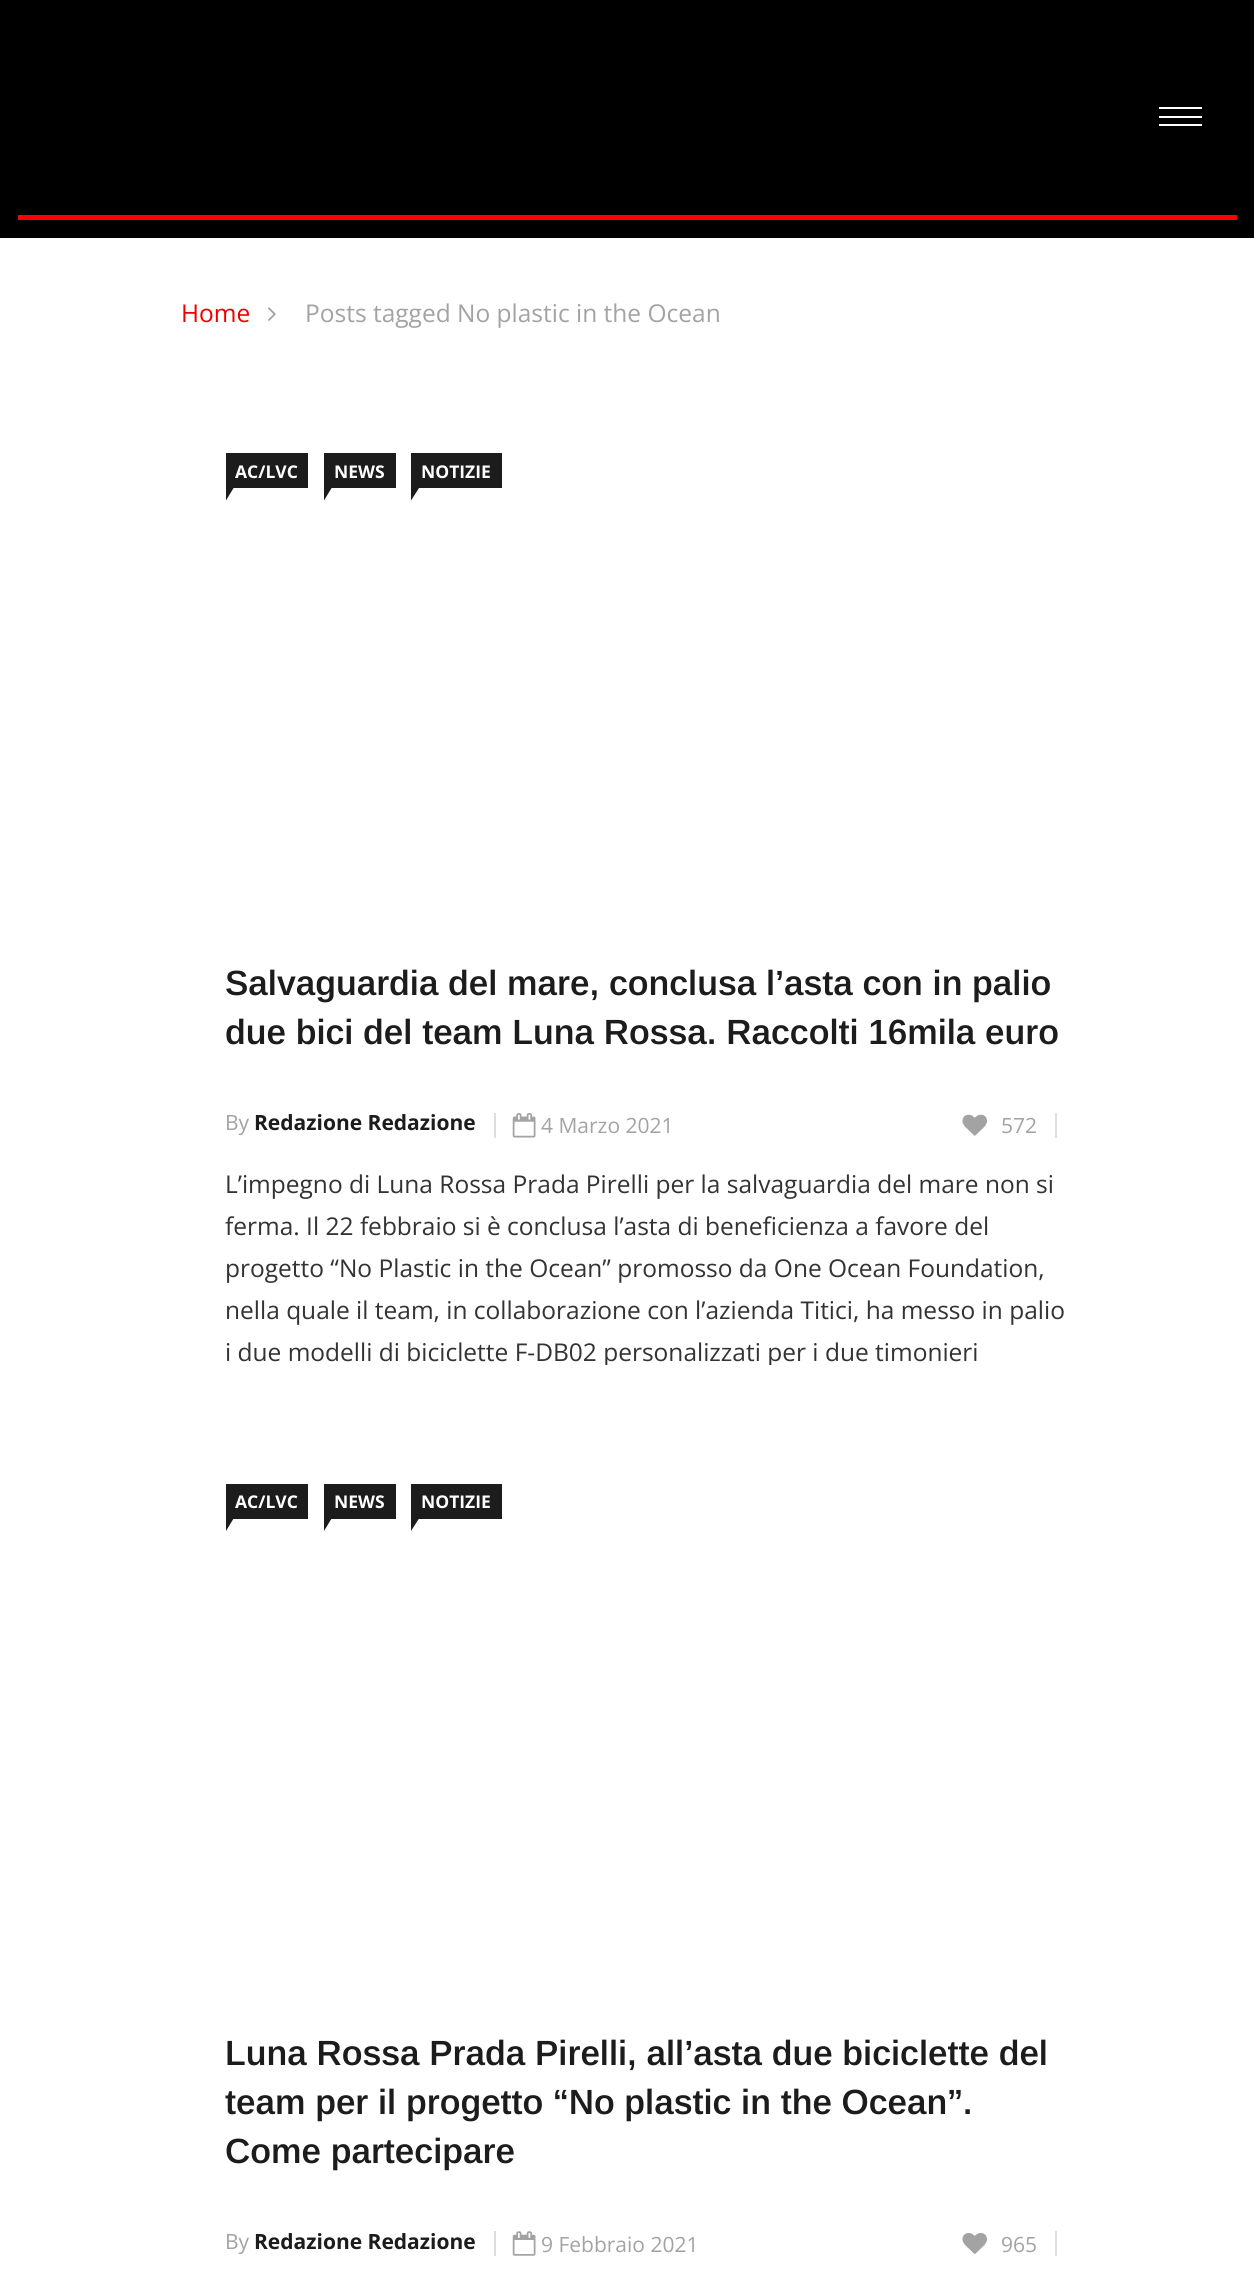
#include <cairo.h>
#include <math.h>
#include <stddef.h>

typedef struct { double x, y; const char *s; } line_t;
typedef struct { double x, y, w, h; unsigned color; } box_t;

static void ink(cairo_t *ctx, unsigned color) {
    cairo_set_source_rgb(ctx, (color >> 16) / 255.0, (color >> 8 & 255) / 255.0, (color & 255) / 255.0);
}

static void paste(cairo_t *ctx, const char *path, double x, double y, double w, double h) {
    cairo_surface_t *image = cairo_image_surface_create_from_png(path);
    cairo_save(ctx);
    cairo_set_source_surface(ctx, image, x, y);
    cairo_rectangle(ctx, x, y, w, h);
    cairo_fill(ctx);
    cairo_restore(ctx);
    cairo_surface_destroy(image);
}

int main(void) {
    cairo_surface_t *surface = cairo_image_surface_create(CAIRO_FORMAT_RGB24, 1254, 2290);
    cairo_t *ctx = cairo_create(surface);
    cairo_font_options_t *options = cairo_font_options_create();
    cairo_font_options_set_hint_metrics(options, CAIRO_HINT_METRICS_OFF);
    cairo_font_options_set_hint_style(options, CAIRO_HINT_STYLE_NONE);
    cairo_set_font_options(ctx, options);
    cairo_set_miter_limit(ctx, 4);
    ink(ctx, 0xFFFFFF);
    cairo_paint(ctx);
    {
        static const box_t items[] = {
            {0, 0, 1254, 238, 0x000000},
            {18, 215, 1219, 5, 0xFF0000},
            {1159, 107, 43, 2, 0xFEFEFE},
            {1159, 116, 43, 2, 0xFEFEFE},
            {1159, 124, 43, 2, 0xFEFEFE},
        };
        for (size_t i = 0; i < sizeof items / sizeof *items; i++) {
            ink(ctx, items[i].color);
            cairo_rectangle(ctx, items[i].x, items[i].y, items[i].w, items[i].h);
            cairo_fill(ctx);
        }
    }
    cairo_select_font_face(ctx, "Open Sans", CAIRO_FONT_SLANT_NORMAL, CAIRO_FONT_WEIGHT_NORMAL);
    cairo_set_font_size(ctx, 24.5);
    ink(ctx, 0xEC0000);
    cairo_move_to(ctx, 181, 322);
    cairo_show_text(ctx, "Home");
    paste(ctx, "media/1.png", 268, 307, 8, 14);
    ink(ctx, 0xA3A3A3);
    cairo_move_to(ctx, 305, 322);
    cairo_show_text(ctx, "Posts tagged No plastic in the Ocean");
    ink(ctx, 0x1C1C1C);
    cairo_rectangle(ctx, 226, 453, 82, 35);
    cairo_fill(ctx);
    cairo_select_font_face(ctx, "Open Sans", CAIRO_FONT_SLANT_NORMAL, CAIRO_FONT_WEIGHT_BOLD);
    cairo_set_font_size(ctx, 17.5);
    ink(ctx, 0xFFFFFF);
    cairo_move_to(ctx, 235, 478);
    cairo_show_text(ctx, "AC/LVC");
    ink(ctx, 0x1C1C1C);
    cairo_new_path(ctx);
    cairo_move_to(ctx, 226, 486.5);
    cairo_line_to(ctx, 234.5, 486.5);
    cairo_line_to(ctx, 226, 500.5);
    cairo_close_path(ctx);
    cairo_fill(ctx);
    cairo_rectangle(ctx, 324, 453, 72, 35);
    cairo_fill(ctx);
    ink(ctx, 0xFFFFFF);
    cairo_move_to(ctx, 334, 478);
    cairo_show_text(ctx, "NEWS");
    ink(ctx, 0x1C1C1C);
    cairo_new_path(ctx);
    cairo_move_to(ctx, 324, 486.5);
    cairo_line_to(ctx, 332.5, 486.5);
    cairo_line_to(ctx, 324, 500.5);
    cairo_close_path(ctx);
    cairo_fill(ctx);
    cairo_rectangle(ctx, 411, 453, 91, 35);
    cairo_fill(ctx);
    ink(ctx, 0xFFFFFF);
    cairo_move_to(ctx, 421, 478);
    cairo_show_text(ctx, "NOTIZIE");
    ink(ctx, 0x1C1C1C);
    cairo_new_path(ctx);
    cairo_move_to(ctx, 411, 486.5);
    cairo_line_to(ctx, 420, 486.5);
    cairo_line_to(ctx, 411, 500.5);
    cairo_close_path(ctx);
    cairo_fill(ctx);
    cairo_select_font_face(ctx, "Arimo SemiBold", CAIRO_FONT_SLANT_NORMAL, CAIRO_FONT_WEIGHT_NORMAL);
    cairo_set_font_size(ctx, 35);
    cairo_move_to(ctx, 225, 995);
    cairo_show_text(ctx, "Salvaguardia del mare, conclusa l’asta con in palio");
    cairo_move_to(ctx, 225, 1044);
    cairo_show_text(ctx, "due bici del team Luna Rossa. Raccolti 16mila euro");
    ink(ctx, 0xDEDEDE);
    cairo_rectangle(ctx, 494, 1113, 2, 25);
    cairo_fill(ctx);
    cairo_select_font_face(ctx, "Open Sans", CAIRO_FONT_SLANT_NORMAL, CAIRO_FONT_WEIGHT_NORMAL);
    cairo_set_font_size(ctx, 21);
    ink(ctx, 0xA3A3A3);
    cairo_move_to(ctx, 225, 1130);
    cairo_show_text(ctx, "By");
    cairo_select_font_face(ctx, "Open Sans", CAIRO_FONT_SLANT_NORMAL, CAIRO_FONT_WEIGHT_BOLD);
    ink(ctx, 0x1C1C1C);
    cairo_move_to(ctx, 254, 1130);
    cairo_show_text(ctx, "Redazione Redazione");
    paste(ctx, "media/2.png", 512, 1113, 24, 25);
    cairo_select_font_face(ctx, "Open Sans", CAIRO_FONT_SLANT_NORMAL, CAIRO_FONT_WEIGHT_NORMAL);
    ink(ctx, 0xA3A3A3);
    cairo_move_to(ctx, 541, 1133);
    cairo_show_text(ctx, "4 Marzo 2021");
    ink(ctx, 0xDEDEDE);
    cairo_rectangle(ctx, 1055, 1113, 2, 25);
    cairo_fill(ctx);
    paste(ctx, "media/3.png", 962, 1114, 25, 22);
    ink(ctx, 0xA3A3A3);
    cairo_move_to(ctx, 1001, 1133);
    cairo_show_text(ctx, "572");
    cairo_set_font_size(ctx, 24.5);
    ink(ctx, 0x333333);
    {
        static const line_t items[] = {
            {225, 1193, "L’impegno di Luna Rossa Prada Pirelli per la salvaguardia del mare non si"},
            {225, 1235, "ferma. Il 22 febbraio si è conclusa l’asta di beneficienza a favore del"},
            {225, 1277, "progetto “No Plastic in the Ocean” promosso da One Ocean Foundation,"},
            {225, 1319, "nella quale il team, in collaborazione con l’azienda Titici, ha messo in palio"},
        };
        for (size_t i = 0; i < sizeof items / sizeof *items; i++) {
            cairo_move_to(ctx, items[i].x, items[i].y);
            cairo_show_text(ctx, items[i].s);
        }
    }
    cairo_save(ctx);
    cairo_rectangle(ctx, 226, 1164, 849, 201);
    cairo_clip(ctx);
    cairo_move_to(ctx, 225, 1361);
    cairo_show_text(ctx, "i due modelli di biciclette F-DB02 personalizzati per i due timonieri");
    cairo_restore(ctx);
    ink(ctx, 0x1C1C1C);
    cairo_rectangle(ctx, 226, 1484, 82, 35);
    cairo_fill(ctx);
    cairo_select_font_face(ctx, "Open Sans", CAIRO_FONT_SLANT_NORMAL, CAIRO_FONT_WEIGHT_BOLD);
    cairo_set_font_size(ctx, 17.5);
    ink(ctx, 0xFFFFFF);
    cairo_move_to(ctx, 235, 1508);
    cairo_show_text(ctx, "AC/LVC");
    ink(ctx, 0x1C1C1C);
    cairo_new_path(ctx);
    cairo_move_to(ctx, 226, 1517);
    cairo_line_to(ctx, 234.5, 1517);
    cairo_line_to(ctx, 226, 1531);
    cairo_close_path(ctx);
    cairo_fill(ctx);
    cairo_rectangle(ctx, 324, 1484, 72, 35);
    cairo_fill(ctx);
    ink(ctx, 0xFFFFFF);
    cairo_move_to(ctx, 334, 1508);
    cairo_show_text(ctx, "NEWS");
    ink(ctx, 0x1C1C1C);
    cairo_new_path(ctx);
    cairo_move_to(ctx, 324, 1517);
    cairo_line_to(ctx, 332.5, 1517);
    cairo_line_to(ctx, 324, 1531);
    cairo_close_path(ctx);
    cairo_fill(ctx);
    cairo_rectangle(ctx, 411, 1484, 91, 35);
    cairo_fill(ctx);
    ink(ctx, 0xFFFFFF);
    cairo_move_to(ctx, 421, 1508);
    cairo_show_text(ctx, "NOTIZIE");
    ink(ctx, 0x1C1C1C);
    cairo_new_path(ctx);
    cairo_move_to(ctx, 411, 1517);
    cairo_line_to(ctx, 420, 1517);
    cairo_line_to(ctx, 411, 1531);
    cairo_close_path(ctx);
    cairo_fill(ctx);
    cairo_select_font_face(ctx, "Arimo SemiBold", CAIRO_FONT_SLANT_NORMAL, CAIRO_FONT_WEIGHT_NORMAL);
    cairo_set_font_size(ctx, 35);
    {
        static const line_t items[] = {
            {225, 2065, "Luna Rossa Prada Pirelli, all’asta due biciclette del"},
            {225, 2114, "team per il progetto “No plastic in the Ocean”."},
            {225, 2163, "Come partecipare"},
        };
        for (size_t i = 0; i < sizeof items / sizeof *items; i++) {
            cairo_move_to(ctx, items[i].x, items[i].y);
            cairo_show_text(ctx, items[i].s);
        }
    }
    ink(ctx, 0xDEDEDE);
    cairo_rectangle(ctx, 494, 2231, 2, 25);
    cairo_fill(ctx);
    cairo_select_font_face(ctx, "Open Sans", CAIRO_FONT_SLANT_NORMAL, CAIRO_FONT_WEIGHT_NORMAL);
    cairo_set_font_size(ctx, 21);
    ink(ctx, 0xA3A3A3);
    cairo_move_to(ctx, 225, 2249);
    cairo_show_text(ctx, "By");
    cairo_select_font_face(ctx, "Open Sans", CAIRO_FONT_SLANT_NORMAL, CAIRO_FONT_WEIGHT_BOLD);
    ink(ctx, 0x1C1C1C);
    cairo_move_to(ctx, 254, 2249);
    cairo_show_text(ctx, "Redazione Redazione");
    paste(ctx, "media/4.png", 512, 2231, 24, 25);
    cairo_select_font_face(ctx, "Open Sans", CAIRO_FONT_SLANT_NORMAL, CAIRO_FONT_WEIGHT_NORMAL);
    ink(ctx, 0xA3A3A3);
    cairo_move_to(ctx, 541, 2252);
    cairo_show_text(ctx, "9 Febbraio 2021");
    ink(ctx, 0xDEDEDE);
    cairo_rectangle(ctx, 1055, 2231, 2, 25);
    cairo_fill(ctx);
    paste(ctx, "media/5.png", 962, 2233, 25, 21);
    ink(ctx, 0xA3A3A3);
    cairo_move_to(ctx, 1001, 2252);
    cairo_show_text(ctx, "965");
    cairo_surface_write_to_png(surface, "image.png");
    cairo_font_options_destroy(options);
    cairo_destroy(ctx);
    cairo_surface_destroy(surface);
    return 0;
}
